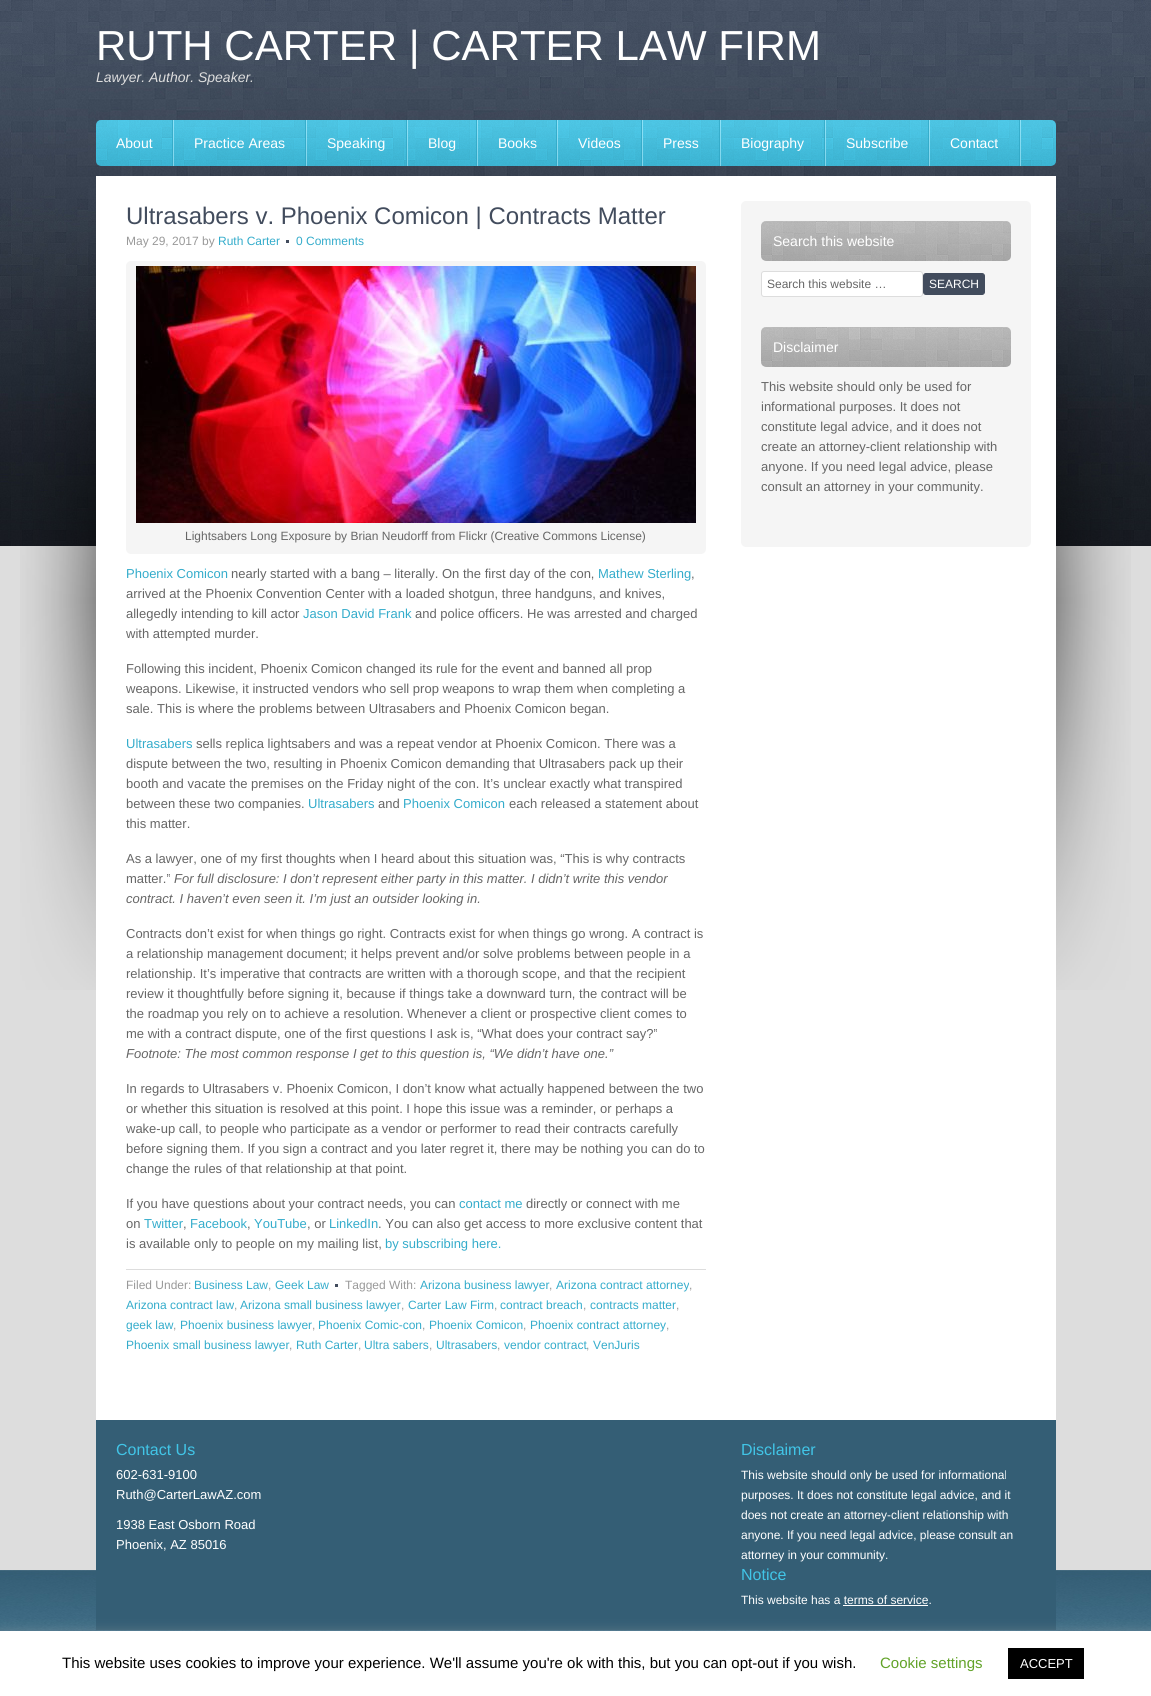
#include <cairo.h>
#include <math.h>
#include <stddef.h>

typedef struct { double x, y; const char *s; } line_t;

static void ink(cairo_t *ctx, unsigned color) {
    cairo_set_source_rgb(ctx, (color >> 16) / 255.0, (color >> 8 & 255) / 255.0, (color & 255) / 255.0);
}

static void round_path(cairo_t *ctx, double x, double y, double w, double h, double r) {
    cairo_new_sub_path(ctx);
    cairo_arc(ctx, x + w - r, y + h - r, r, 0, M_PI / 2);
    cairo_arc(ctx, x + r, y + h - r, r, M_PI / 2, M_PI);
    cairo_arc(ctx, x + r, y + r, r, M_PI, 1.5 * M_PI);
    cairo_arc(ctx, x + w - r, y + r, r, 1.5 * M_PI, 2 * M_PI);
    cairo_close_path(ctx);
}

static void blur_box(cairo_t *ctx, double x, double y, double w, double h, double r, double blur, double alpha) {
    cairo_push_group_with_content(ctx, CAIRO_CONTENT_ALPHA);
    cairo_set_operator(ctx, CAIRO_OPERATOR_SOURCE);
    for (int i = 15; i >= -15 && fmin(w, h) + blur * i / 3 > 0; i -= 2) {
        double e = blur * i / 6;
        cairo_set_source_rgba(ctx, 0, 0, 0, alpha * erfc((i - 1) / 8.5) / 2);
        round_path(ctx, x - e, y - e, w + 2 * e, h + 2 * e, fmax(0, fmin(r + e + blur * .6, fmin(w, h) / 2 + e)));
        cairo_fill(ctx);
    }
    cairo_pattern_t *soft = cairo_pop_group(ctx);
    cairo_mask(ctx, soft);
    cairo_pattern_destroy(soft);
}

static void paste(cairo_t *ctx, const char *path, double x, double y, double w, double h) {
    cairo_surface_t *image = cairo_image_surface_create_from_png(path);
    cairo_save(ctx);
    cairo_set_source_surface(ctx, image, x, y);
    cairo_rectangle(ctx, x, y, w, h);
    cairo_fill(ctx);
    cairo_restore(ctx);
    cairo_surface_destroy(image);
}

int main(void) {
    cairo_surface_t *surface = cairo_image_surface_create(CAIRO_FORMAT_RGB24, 1151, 1696);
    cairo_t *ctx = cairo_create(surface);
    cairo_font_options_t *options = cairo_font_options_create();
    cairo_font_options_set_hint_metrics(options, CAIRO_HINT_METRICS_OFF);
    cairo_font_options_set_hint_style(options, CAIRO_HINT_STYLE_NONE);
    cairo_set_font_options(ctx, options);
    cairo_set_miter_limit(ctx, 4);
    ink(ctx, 0xDDDDDD);
    cairo_paint(ctx);
    paste(ctx, "media/1.png", 0, 1570, 1151, 61);
    paste(ctx, "media/2.png", 0, 0, 1151, 546);
    cairo_select_font_face(ctx, "Liberation Sans", CAIRO_FONT_SLANT_NORMAL, CAIRO_FONT_WEIGHT_NORMAL);
    cairo_set_font_size(ctx, 42);
    ink(ctx, 0xFFFFFF);
    cairo_move_to(ctx, 96, 60);
    cairo_show_text(ctx, "RUTH CARTER | CARTER LAW FIRM");
    cairo_select_font_face(ctx, "Liberation Sans", CAIRO_FONT_SLANT_ITALIC, CAIRO_FONT_WEIGHT_NORMAL);
    cairo_set_font_size(ctx, 14);
    ink(ctx, 0xDDDDDD);
    cairo_move_to(ctx, 96, 82);
    cairo_show_text(ctx, "Lawyer. Author. Speaker.");
    paste(ctx, "media/3.png", 96, 120, 960, 46);
    paste(ctx, "media/4.png", 172, 120, 2, 46);
    cairo_select_font_face(ctx, "Liberation Sans", CAIRO_FONT_SLANT_NORMAL, CAIRO_FONT_WEIGHT_NORMAL);
    ink(ctx, 0xFFFFFF);
    cairo_move_to(ctx, 116, 148);
    cairo_show_text(ctx, "About");
    paste(ctx, "media/4.png", 305, 120, 2, 46);
    cairo_move_to(ctx, 194, 148);
    cairo_show_text(ctx, "Practice Areas");
    paste(ctx, "media/4.png", 406, 120, 2, 46);
    cairo_move_to(ctx, 327, 148);
    cairo_show_text(ctx, "Speaking");
    paste(ctx, "media/4.png", 476, 120, 2, 46);
    cairo_move_to(ctx, 428, 148);
    cairo_show_text(ctx, "Blog");
    paste(ctx, "media/4.png", 556, 120, 2, 46);
    cairo_move_to(ctx, 498, 148);
    cairo_show_text(ctx, "Books");
    paste(ctx, "media/4.png", 641, 120, 2, 46);
    cairo_move_to(ctx, 578, 148);
    cairo_show_text(ctx, "Videos");
    paste(ctx, "media/4.png", 719, 120, 2, 46);
    cairo_move_to(ctx, 663, 148);
    cairo_show_text(ctx, "Press");
    paste(ctx, "media/4.png", 824, 120, 2, 46);
    cairo_move_to(ctx, 741, 148);
    cairo_show_text(ctx, "Biography");
    paste(ctx, "media/4.png", 928, 120, 2, 46);
    cairo_move_to(ctx, 846, 148);
    cairo_show_text(ctx, "Subscribe");
    paste(ctx, "media/4.png", 1019, 120, 2, 46);
    cairo_move_to(ctx, 950, 148);
    cairo_show_text(ctx, "Contact");
    paste(ctx, "media/5.png", 20, 230, 1111, 760);
    cairo_rectangle(ctx, 96, 176, 960, 1244);
    cairo_fill(ctx);
    cairo_set_font_size(ctx, 24);
    ink(ctx, 0x424C5D);
    cairo_move_to(ctx, 126, 224);
    cairo_show_text(ctx, "Ultrasabers v. Phoenix Comicon | Contracts Matter");
    cairo_set_font_size(ctx, 12);
    ink(ctx, 0x999999);
    cairo_move_to(ctx, 126, 245);
    cairo_show_text(ctx, "May 29, 2017 by");
    ink(ctx, 0x34ACCB);
    cairo_move_to(ctx, 218, 245);
    cairo_show_text(ctx, "Ruth Carter");
    cairo_move_to(ctx, 296, 245);
    cairo_show_text(ctx, "0 Comments");
    ink(ctx, 0x424C5D);
    cairo_rectangle(ctx, 286, 240, 3, 3);
    cairo_fill(ctx);
    ink(ctx, 0xF5F5F5);
    round_path(ctx, 126, 261, 580, 293, 5);
    cairo_fill(ctx);
    paste(ctx, "media/6.png", 136, 266, 560, 257);
    ink(ctx, 0x666666);
    cairo_move_to(ctx, 185, 540);
    cairo_show_text(ctx, "Lightsabers Long Exposure by Brian Neudorff from Flickr (Creative Commons License)");
    cairo_set_font_size(ctx, 13);
    ink(ctx, 0x34ACCB);
    cairo_move_to(ctx, 126, 578);
    cairo_show_text(ctx, "Phoenix Comicon");
    ink(ctx, 0x666666);
    cairo_move_to(ctx, 231, 578);
    cairo_show_text(ctx, "nearly started with a bang – literally. On the first day of the con,");
    ink(ctx, 0x34ACCB);
    cairo_move_to(ctx, 598, 578);
    cairo_show_text(ctx, "Mathew Sterling");
    ink(ctx, 0x666666);
    {
        static const line_t items[] = {
            {691, 578, ","},
            {126, 598, "arrived at the Phoenix Convention Center with a loaded shotgun, three handguns, and knives,"},
            {126, 618, "allegedly intending to kill actor"},
        };
        for (size_t i = 0; i < sizeof items / sizeof *items; i++) {
            cairo_move_to(ctx, items[i].x, items[i].y);
            cairo_show_text(ctx, items[i].s);
        }
    }
    ink(ctx, 0x34ACCB);
    cairo_move_to(ctx, 303, 618);
    cairo_show_text(ctx, "Jason David Frank");
    ink(ctx, 0x666666);
    {
        static const line_t items[] = {
            {415, 618, "and police officers. He was arrested and charged"},
            {126, 638, "with attempted murder."},
            {126, 673, "Following this incident, Phoenix Comicon changed its rule for the event and banned all prop"},
            {126, 693, "weapons. Likewise, it instructed vendors who sell prop weapons to wrap them when completing a"},
            {126, 713, "sale. This is where the problems between Ultrasabers and Phoenix Comicon began."},
        };
        for (size_t i = 0; i < sizeof items / sizeof *items; i++) {
            cairo_move_to(ctx, items[i].x, items[i].y);
            cairo_show_text(ctx, items[i].s);
        }
    }
    ink(ctx, 0x34ACCB);
    cairo_move_to(ctx, 126, 748);
    cairo_show_text(ctx, "Ultrasabers");
    ink(ctx, 0x666666);
    {
        static const line_t items[] = {
            {196, 748, "sells replica lightsabers and was a repeat vendor at Phoenix Comicon. There was a"},
            {126, 768, "dispute between the two, resulting in Phoenix Comicon demanding that Ultrasabers pack up their"},
            {126, 788, "booth and vacate the premises on the Friday night of the con. It’s unclear exactly what transpired"},
            {126, 808, "between these two companies."},
        };
        for (size_t i = 0; i < sizeof items / sizeof *items; i++) {
            cairo_move_to(ctx, items[i].x, items[i].y);
            cairo_show_text(ctx, items[i].s);
        }
    }
    ink(ctx, 0x34ACCB);
    cairo_move_to(ctx, 308, 808);
    cairo_show_text(ctx, "Ultrasabers");
    ink(ctx, 0x666666);
    cairo_move_to(ctx, 378, 808);
    cairo_show_text(ctx, "and");
    ink(ctx, 0x34ACCB);
    cairo_move_to(ctx, 403, 808);
    cairo_show_text(ctx, "Phoenix Comicon");
    ink(ctx, 0x666666);
    {
        static const line_t items[] = {
            {509, 808, "each released a statement about"},
            {126, 828, "this matter."},
            {126, 863, "As a lawyer, one of my first thoughts when I heard about this situation was, “This is why contracts"},
            {126, 883, "matter.”"},
        };
        for (size_t i = 0; i < sizeof items / sizeof *items; i++) {
            cairo_move_to(ctx, items[i].x, items[i].y);
            cairo_show_text(ctx, items[i].s);
        }
    }
    cairo_select_font_face(ctx, "Liberation Sans", CAIRO_FONT_SLANT_ITALIC, CAIRO_FONT_WEIGHT_NORMAL);
    cairo_move_to(ctx, 174, 883);
    cairo_show_text(ctx, "For full disclosure: I don’t represent either party in this matter. I didn’t write this vendor");
    cairo_move_to(ctx, 126, 903);
    cairo_show_text(ctx, "contract. I haven’t even seen it. I’m just an outsider looking in.");
    cairo_select_font_face(ctx, "Liberation Sans", CAIRO_FONT_SLANT_NORMAL, CAIRO_FONT_WEIGHT_NORMAL);
    {
        static const line_t items[] = {
            {126, 938, "Contracts don’t exist for when things go right. Contracts exist for when things go wrong. A contract is"},
            {126, 958, "a relationship management document; it helps prevent and/or solve problems between people in a"},
            {126, 978, "relationship. It’s imperative that contracts are written with a thorough scope, and that the recipient"},
            {126, 998, "review it thoughtfully before signing it, because if things take a downward turn, the contract will be"},
            {126, 1018, "the roadmap you rely on to achieve a resolution. Whenever a client or prospective client comes to"},
            {126, 1038, "me with a contract dispute, one of the first questions I ask is, “What does your contract say?”"},
        };
        for (size_t i = 0; i < sizeof items / sizeof *items; i++) {
            cairo_move_to(ctx, items[i].x, items[i].y);
            cairo_show_text(ctx, items[i].s);
        }
    }
    cairo_select_font_face(ctx, "Liberation Sans", CAIRO_FONT_SLANT_ITALIC, CAIRO_FONT_WEIGHT_NORMAL);
    cairo_move_to(ctx, 126, 1058);
    cairo_show_text(ctx, "Footnote: The most common response I get to this question is, “We didn’t have one.”");
    cairo_select_font_face(ctx, "Liberation Sans", CAIRO_FONT_SLANT_NORMAL, CAIRO_FONT_WEIGHT_NORMAL);
    {
        static const line_t items[] = {
            {126, 1093, "In regards to Ultrasabers v. Phoenix Comicon, I don’t know what actually happened between the two"},
            {126, 1113, "or whether this situation is resolved at this point. I hope this issue was a reminder, or perhaps a"},
            {126, 1133, "wake-up call, to people who participate as a vendor or performer to read their contracts carefully"},
            {126, 1153, "before signing them. If you sign a contract and you later regret it, there may be nothing you can do to"},
            {126, 1173, "change the rules of that relationship at that point."},
            {126, 1208, "If you have questions about your contract needs, you can"},
        };
        for (size_t i = 0; i < sizeof items / sizeof *items; i++) {
            cairo_move_to(ctx, items[i].x, items[i].y);
            cairo_show_text(ctx, items[i].s);
        }
    }
    ink(ctx, 0x34ACCB);
    cairo_move_to(ctx, 459, 1208);
    cairo_show_text(ctx, "contact me");
    ink(ctx, 0x666666);
    cairo_move_to(ctx, 526, 1208);
    cairo_show_text(ctx, "directly or connect with me");
    cairo_move_to(ctx, 126, 1228);
    cairo_show_text(ctx, "on");
    ink(ctx, 0x34ACCB);
    cairo_move_to(ctx, 144, 1228);
    cairo_show_text(ctx, "Twitter");
    ink(ctx, 0x666666);
    cairo_move_to(ctx, 183, 1228);
    cairo_show_text(ctx, ",");
    ink(ctx, 0x34ACCB);
    cairo_move_to(ctx, 190, 1228);
    cairo_show_text(ctx, "Facebook");
    ink(ctx, 0x666666);
    cairo_move_to(ctx, 247, 1228);
    cairo_show_text(ctx, ",");
    ink(ctx, 0x34ACCB);
    cairo_move_to(ctx, 254, 1228);
    cairo_show_text(ctx, "YouTube");
    ink(ctx, 0x666666);
    cairo_move_to(ctx, 307, 1228);
    cairo_show_text(ctx, ", or");
    ink(ctx, 0x34ACCB);
    cairo_move_to(ctx, 329, 1228);
    cairo_show_text(ctx, "LinkedIn");
    ink(ctx, 0x666666);
    cairo_move_to(ctx, 378, 1228);
    cairo_show_text(ctx, ". You can also get access to more exclusive content that");
    cairo_move_to(ctx, 126, 1248);
    cairo_show_text(ctx, "is available only to people on my mailing list,");
    ink(ctx, 0x34ACCB);
    cairo_move_to(ctx, 385, 1248);
    cairo_show_text(ctx, "by subscribing here.");
    ink(ctx, 0xDDDDDD);
    cairo_rectangle(ctx, 126, 1269, 580, 1);
    cairo_fill(ctx);
    cairo_set_font_size(ctx, 12);
    ink(ctx, 0x999999);
    cairo_move_to(ctx, 126, 1289);
    cairo_show_text(ctx, "Filed Under:");
    ink(ctx, 0x34ACCB);
    cairo_move_to(ctx, 194, 1289);
    cairo_show_text(ctx, "Business Law");
    ink(ctx, 0x999999);
    cairo_move_to(ctx, 268, 1289);
    cairo_show_text(ctx, ",");
    ink(ctx, 0x34ACCB);
    cairo_move_to(ctx, 275, 1289);
    cairo_show_text(ctx, "Geek Law");
    ink(ctx, 0x999999);
    cairo_move_to(ctx, 345, 1289);
    cairo_show_text(ctx, "Tagged With:");
    ink(ctx, 0x424C5D);
    cairo_rectangle(ctx, 335, 1284, 3, 3);
    cairo_fill(ctx);
    ink(ctx, 0x34ACCB);
    cairo_move_to(ctx, 420, 1289);
    cairo_show_text(ctx, "Arizona business lawyer");
    ink(ctx, 0x999999);
    cairo_move_to(ctx, 549, 1289);
    cairo_show_text(ctx, ",");
    ink(ctx, 0x34ACCB);
    cairo_move_to(ctx, 556, 1289);
    cairo_show_text(ctx, "Arizona contract attorney");
    ink(ctx, 0x999999);
    cairo_move_to(ctx, 689, 1289);
    cairo_show_text(ctx, ",");
    ink(ctx, 0x34ACCB);
    cairo_move_to(ctx, 126, 1309);
    cairo_show_text(ctx, "Arizona contract law");
    ink(ctx, 0x999999);
    cairo_move_to(ctx, 234, 1309);
    cairo_show_text(ctx, ",");
    ink(ctx, 0x34ACCB);
    cairo_move_to(ctx, 240, 1309);
    cairo_show_text(ctx, "Arizona small business lawyer");
    ink(ctx, 0x999999);
    cairo_move_to(ctx, 401, 1309);
    cairo_show_text(ctx, ",");
    ink(ctx, 0x34ACCB);
    cairo_move_to(ctx, 408, 1309);
    cairo_show_text(ctx, "Carter Law Firm");
    ink(ctx, 0x999999);
    cairo_move_to(ctx, 494, 1309);
    cairo_show_text(ctx, ",");
    ink(ctx, 0x34ACCB);
    cairo_move_to(ctx, 500, 1309);
    cairo_show_text(ctx, "contract breach");
    ink(ctx, 0x999999);
    cairo_move_to(ctx, 583, 1309);
    cairo_show_text(ctx, ",");
    ink(ctx, 0x34ACCB);
    cairo_move_to(ctx, 590, 1309);
    cairo_show_text(ctx, "contracts matter");
    ink(ctx, 0x999999);
    cairo_move_to(ctx, 676, 1309);
    cairo_show_text(ctx, ",");
    ink(ctx, 0x34ACCB);
    cairo_move_to(ctx, 126, 1329);
    cairo_show_text(ctx, "geek law");
    ink(ctx, 0x999999);
    cairo_move_to(ctx, 173, 1329);
    cairo_show_text(ctx, ",");
    ink(ctx, 0x34ACCB);
    cairo_move_to(ctx, 180, 1329);
    cairo_show_text(ctx, "Phoenix business lawyer");
    ink(ctx, 0x999999);
    cairo_move_to(ctx, 312, 1329);
    cairo_show_text(ctx, ",");
    ink(ctx, 0x34ACCB);
    cairo_move_to(ctx, 318, 1329);
    cairo_show_text(ctx, "Phoenix Comic-con");
    ink(ctx, 0x999999);
    cairo_move_to(ctx, 422, 1329);
    cairo_show_text(ctx, ",");
    ink(ctx, 0x34ACCB);
    cairo_move_to(ctx, 429, 1329);
    cairo_show_text(ctx, "Phoenix Comicon");
    ink(ctx, 0x999999);
    cairo_move_to(ctx, 523, 1329);
    cairo_show_text(ctx, ",");
    ink(ctx, 0x34ACCB);
    cairo_move_to(ctx, 530, 1329);
    cairo_show_text(ctx, "Phoenix contract attorney");
    ink(ctx, 0x999999);
    cairo_move_to(ctx, 666, 1329);
    cairo_show_text(ctx, ",");
    ink(ctx, 0x34ACCB);
    cairo_move_to(ctx, 126, 1349);
    cairo_show_text(ctx, "Phoenix small business lawyer");
    ink(ctx, 0x999999);
    cairo_move_to(ctx, 289, 1349);
    cairo_show_text(ctx, ",");
    ink(ctx, 0x34ACCB);
    cairo_move_to(ctx, 296, 1349);
    cairo_show_text(ctx, "Ruth Carter");
    ink(ctx, 0x999999);
    cairo_move_to(ctx, 358, 1349);
    cairo_show_text(ctx, ",");
    ink(ctx, 0x34ACCB);
    cairo_move_to(ctx, 364, 1349);
    cairo_show_text(ctx, "Ultra sabers");
    ink(ctx, 0x999999);
    cairo_move_to(ctx, 429, 1349);
    cairo_show_text(ctx, ",");
    ink(ctx, 0x34ACCB);
    cairo_move_to(ctx, 436, 1349);
    cairo_show_text(ctx, "Ultrasabers");
    ink(ctx, 0x999999);
    cairo_move_to(ctx, 497, 1349);
    cairo_show_text(ctx, ",");
    ink(ctx, 0x34ACCB);
    cairo_move_to(ctx, 504, 1349);
    cairo_show_text(ctx, "vendor contract");
    ink(ctx, 0x999999);
    cairo_move_to(ctx, 586, 1349);
    cairo_show_text(ctx, ",");
    ink(ctx, 0x34ACCB);
    cairo_move_to(ctx, 593, 1349);
    cairo_show_text(ctx, "VenJuris");
    ink(ctx, 0xF5F5F5);
    round_path(ctx, 741, 201, 290, 346, 5);
    cairo_fill(ctx);
    paste(ctx, "media/7.png", 761, 221, 250, 40);
    cairo_set_font_size(ctx, 14);
    ink(ctx, 0xFFFFFF);
    cairo_move_to(ctx, 773, 246);
    cairo_show_text(ctx, "Search this website");
    round_path(ctx, 761.5, 271.5, 161, 25, 2.5);
    cairo_fill_preserve(ctx);
    ink(ctx, 0xDDDDDD);
    cairo_set_line_width(ctx, 1);
    cairo_stroke(ctx);
    cairo_set_font_size(ctx, 12);
    ink(ctx, 0x666666);
    cairo_move_to(ctx, 767, 288);
    cairo_show_text(ctx, "Search this website …");
    ink(ctx, 0x424C5D);
    round_path(ctx, 923.5, 273.5, 61, 21, 2.5);
    cairo_fill_preserve(ctx);
    cairo_stroke(ctx);
    ink(ctx, 0xFFFFFF);
    cairo_move_to(ctx, 929, 288);
    cairo_show_text(ctx, "SEARCH");
    paste(ctx, "media/7.png", 761, 327, 250, 40);
    cairo_set_font_size(ctx, 14);
    cairo_move_to(ctx, 773, 352);
    cairo_show_text(ctx, "Disclaimer");
    cairo_set_font_size(ctx, 13);
    ink(ctx, 0x666666);
    {
        static const line_t items[] = {
            {761, 391, "This website should only be used for"},
            {761, 411, "informational purposes. It does not"},
            {761, 431, "constitute legal advice, and it does not"},
            {761, 451, "create an attorney-client relationship with"},
            {761, 471, "anyone. If you need legal advice, please"},
            {761, 491, "consult an attorney in your community."},
        };
        for (size_t i = 0; i < sizeof items / sizeof *items; i++) {
            cairo_move_to(ctx, items[i].x, items[i].y);
            cairo_show_text(ctx, items[i].s);
        }
    }
    ink(ctx, 0x345E75);
    cairo_rectangle(ctx, 96, 1420, 960, 210);
    cairo_fill(ctx);
    cairo_set_font_size(ctx, 16);
    ink(ctx, 0x41C5E7);
    cairo_move_to(ctx, 116, 1455);
    cairo_show_text(ctx, "Contact Us");
    cairo_set_font_size(ctx, 13);
    ink(ctx, 0xFFFFFF);
    {
        static const line_t items[] = {
            {116, 1479, "602-631-9100"},
            {116, 1499, "Ruth@CarterLawAZ.com"},
            {116, 1529, "1938 East Osborn Road"},
            {116, 1549, "Phoenix, AZ 85016"},
        };
        for (size_t i = 0; i < sizeof items / sizeof *items; i++) {
            cairo_move_to(ctx, items[i].x, items[i].y);
            cairo_show_text(ctx, items[i].s);
        }
    }
    cairo_set_font_size(ctx, 16);
    ink(ctx, 0x41C5E7);
    cairo_move_to(ctx, 741, 1455);
    cairo_show_text(ctx, "Disclaimer");
    cairo_set_font_size(ctx, 12);
    ink(ctx, 0xFFFFFF);
    {
        static const line_t items[] = {
            {741, 1479, "This website should only be used for informational"},
            {741, 1499, "purposes. It does not constitute legal advice, and it"},
            {741, 1519, "does not create an attorney-client relationship with"},
            {741, 1539, "anyone. If you need legal advice, please consult an"},
            {741, 1559, "attorney in your community."},
        };
        for (size_t i = 0; i < sizeof items / sizeof *items; i++) {
            cairo_move_to(ctx, items[i].x, items[i].y);
            cairo_show_text(ctx, items[i].s);
        }
    }
    cairo_set_font_size(ctx, 16);
    ink(ctx, 0x41C5E7);
    cairo_move_to(ctx, 741, 1580);
    cairo_show_text(ctx, "Notice");
    cairo_set_font_size(ctx, 12);
    ink(ctx, 0xFFFFFF);
    cairo_move_to(ctx, 741, 1604);
    cairo_show_text(ctx, "This website has a terms of service.");
    cairo_rectangle(ctx, 843, 1605, 85, 1);
    cairo_fill(ctx);
    ink(ctx, 0xACABAB);
    blur_box(ctx, 0, 1630, 1151, 65, 0, 5, 0.3);
    ink(ctx, 0xFFFFFF);
    cairo_rectangle(ctx, 0, 1631, 1151, 65);
    cairo_fill(ctx);
    cairo_set_font_size(ctx, 15);
    ink(ctx, 0x000000);
    cairo_move_to(ctx, 62, 1668);
    cairo_show_text(ctx, "This website uses cookies to improve your experience. We'll assume you're ok with this, but you can opt-out if you wish.");
    ink(ctx, 0x62A329);
    cairo_move_to(ctx, 880, 1668);
    cairo_show_text(ctx, "Cookie settings");
    ink(ctx, 0x000000);
    cairo_rectangle(ctx, 1008, 1648, 76, 31);
    cairo_fill(ctx);
    cairo_set_font_size(ctx, 13);
    ink(ctx, 0xFFFFFF);
    cairo_move_to(ctx, 1020, 1668);
    cairo_show_text(ctx, "ACCEPT");
    cairo_surface_write_to_png(surface, "image.png");
    cairo_font_options_destroy(options);
    cairo_destroy(ctx);
    cairo_surface_destroy(surface);
    return 0;
}
